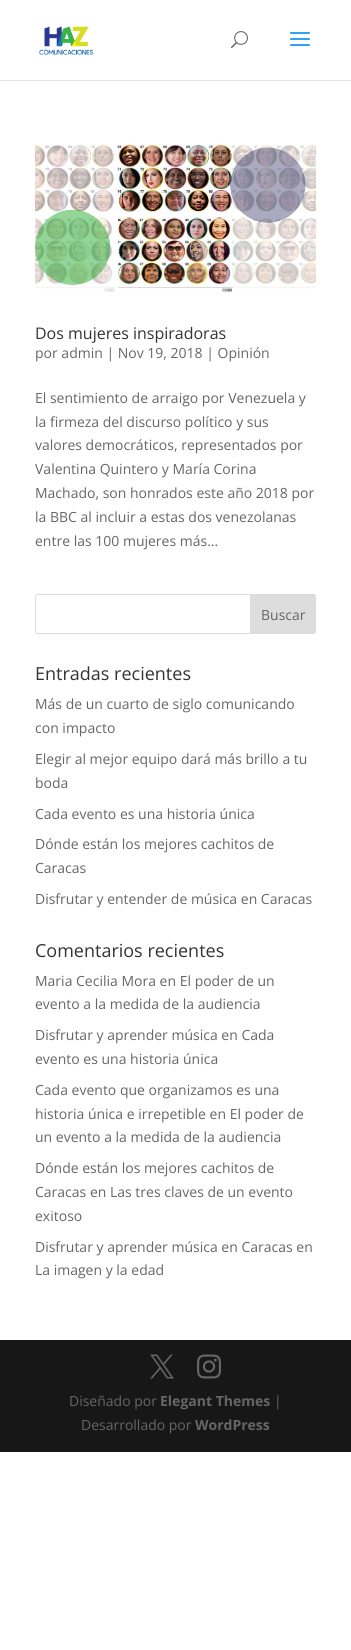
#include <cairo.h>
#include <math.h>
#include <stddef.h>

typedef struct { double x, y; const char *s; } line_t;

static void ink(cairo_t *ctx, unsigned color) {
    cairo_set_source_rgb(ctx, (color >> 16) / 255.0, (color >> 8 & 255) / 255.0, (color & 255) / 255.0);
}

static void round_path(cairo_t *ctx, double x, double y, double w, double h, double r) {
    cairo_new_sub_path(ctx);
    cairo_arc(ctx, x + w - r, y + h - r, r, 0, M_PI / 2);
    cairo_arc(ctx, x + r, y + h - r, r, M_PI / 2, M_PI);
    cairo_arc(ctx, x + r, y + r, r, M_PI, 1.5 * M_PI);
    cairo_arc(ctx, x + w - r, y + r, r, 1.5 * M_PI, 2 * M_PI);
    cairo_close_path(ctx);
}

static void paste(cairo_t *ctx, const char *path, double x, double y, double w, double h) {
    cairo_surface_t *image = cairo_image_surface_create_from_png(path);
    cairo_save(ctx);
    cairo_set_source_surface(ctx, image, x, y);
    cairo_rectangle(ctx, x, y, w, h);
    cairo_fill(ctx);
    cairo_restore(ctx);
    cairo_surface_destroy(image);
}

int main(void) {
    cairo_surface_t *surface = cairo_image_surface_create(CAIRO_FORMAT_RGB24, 351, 1650);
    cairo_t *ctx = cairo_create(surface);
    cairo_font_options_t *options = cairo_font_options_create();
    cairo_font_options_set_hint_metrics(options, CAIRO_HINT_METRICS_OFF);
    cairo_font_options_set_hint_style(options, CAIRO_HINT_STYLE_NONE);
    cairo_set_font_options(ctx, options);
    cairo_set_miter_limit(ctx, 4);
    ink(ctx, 0xFFFFFF);
    cairo_paint(ctx);
    ink(ctx, 0xE6E6E6);
    cairo_rectangle(ctx, 0, 80, 351, 1);
    cairo_fill(ctx);
    paste(ctx, "media/1.png", 39, 26, 55, 29);
    paste(ctx, "media/2.png", 231, 31, 17, 18);
    paste(ctx, "media/3.png", 290, 32, 20, 14);
    paste(ctx, "media/4.png", 35, 144, 281, 148);
    cairo_select_font_face(ctx, "Open Sans", CAIRO_FONT_SLANT_NORMAL, CAIRO_FONT_WEIGHT_NORMAL);
    cairo_set_font_size(ctx, 16);
    ink(ctx, 0x333333);
    cairo_move_to(ctx, 35, 339);
    cairo_show_text(ctx, "Dos mujeres inspiradoras");
    cairo_set_font_size(ctx, 14);
    ink(ctx, 0x666666);
    {
        static const line_t items[] = {
            {35, 358, "por admin | Nov 19, 2018 | Opinión"},
            {35, 403, "El sentimiento de arraigo por Venezuela y"},
            {35, 427, "la firmeza del discurso político y sus"},
            {35, 450, "valores democráticos, representados por"},
            {35, 474, "Valentina Quintero y María Corina"},
            {35, 498, "Machado, son honrados este año 2018 por"},
            {35, 522, "la BBC al incluir a estas dos venezolanas"},
            {35, 546, "entre las 100 mujeres más..."},
        };
        for (size_t i = 0; i < sizeof items / sizeof *items; i++) {
            cairo_move_to(ctx, items[i].x, items[i].y);
            cairo_show_text(ctx, items[i].s);
        }
    }
    round_path(ctx, 35.5, 594.5, 280, 39, 2.5);
    ink(ctx, 0xDDDDDD);
    cairo_set_line_width(ctx, 1);
    cairo_stroke(ctx);
    cairo_new_path(ctx);
    cairo_move_to(ctx, 250.5, 594.5);
    cairo_line_to(ctx, 313, 594.5);
    cairo_curve_to(ctx, 314.5, 594.5, 315.5, 595.5, 315.5, 597);
    cairo_line_to(ctx, 315.5, 631);
    cairo_curve_to(ctx, 315.5, 632.5, 314.5, 633.5, 313, 633.5);
    cairo_line_to(ctx, 250.5, 633.5);
    cairo_close_path(ctx);
    cairo_fill_preserve(ctx);
    cairo_stroke(ctx);
    ink(ctx, 0x666666);
    cairo_move_to(ctx, 261, 620);
    cairo_show_text(ctx, "Buscar");
    cairo_set_font_size(ctx, 18);
    ink(ctx, 0x333333);
    cairo_move_to(ctx, 35, 680);
    cairo_show_text(ctx, "Entradas recientes");
    cairo_set_font_size(ctx, 14);
    ink(ctx, 0x666666);
    {
        static const line_t items[] = {
            {35, 709, "Más de un cuarto de siglo comunicando"},
            {35, 733, "con impacto"},
            {35, 764, "Elegir al mejor equipo dará más brillo a tu"},
            {35, 788, "boda"},
            {35, 819, "Cada evento es una historia única"},
            {35, 849, "Dónde están los mejores cachitos de"},
            {35, 873, "Caracas"},
            {35, 904, "Disfrutar y entender de música en Caracas"},
        };
        for (size_t i = 0; i < sizeof items / sizeof *items; i++) {
            cairo_move_to(ctx, items[i].x, items[i].y);
            cairo_show_text(ctx, items[i].s);
        }
    }
    cairo_set_font_size(ctx, 18);
    ink(ctx, 0x333333);
    cairo_move_to(ctx, 35, 957);
    cairo_show_text(ctx, "Comentarios recientes");
    cairo_set_font_size(ctx, 14);
    ink(ctx, 0x666666);
    {
        static const line_t items[] = {
            {35, 986, "Maria Cecilia Mora en El poder de un"},
            {35, 1009, "evento a la medida de la audiencia"},
            {35, 1040, "Disfrutar y aprender música en Cada"},
            {35, 1064, "evento es una historia única"},
            {35, 1095, "Cada evento que organizamos es una"},
            {35, 1119, "historia única e irrepetible en El poder de"},
            {35, 1142, "un evento a la medida de la audiencia"},
            {35, 1173, "Dónde están los mejores cachitos de"},
            {35, 1197, "Caracas en Las tres claves de un evento"},
            {35, 1221, "exitoso"},
            {35, 1252, "Disfrutar y aprender música en Caracas en"},
            {35, 1275, "La imagen y la edad"},
        };
        for (size_t i = 0; i < sizeof items / sizeof *items; i++) {
            cairo_move_to(ctx, items[i].x, items[i].y);
            cairo_show_text(ctx, items[i].s);
        }
    }
    ink(ctx, 0x171717);
    cairo_rectangle(ctx, 0, 1340, 351, 112);
    cairo_fill(ctx);
    paste(ctx, "media/5.png", 150, 1354, 24, 25);
    paste(ctx, "media/6.png", 197, 1354, 24, 25);
    ink(ctx, 0x666666);
    cairo_move_to(ctx, 69, 1406);
    cairo_show_text(ctx, "Diseñado por");
    cairo_select_font_face(ctx, "Open Sans", CAIRO_FONT_SLANT_NORMAL, CAIRO_FONT_WEIGHT_BOLD);
    cairo_move_to(ctx, 160, 1406);
    cairo_show_text(ctx, "Elegant Themes");
    cairo_select_font_face(ctx, "Open Sans", CAIRO_FONT_SLANT_NORMAL, CAIRO_FONT_WEIGHT_NORMAL);
    cairo_move_to(ctx, 274, 1406);
    cairo_show_text(ctx, "|");
    cairo_move_to(ctx, 81, 1430);
    cairo_show_text(ctx, "Desarrollado por");
    cairo_select_font_face(ctx, "Open Sans", CAIRO_FONT_SLANT_NORMAL, CAIRO_FONT_WEIGHT_BOLD);
    cairo_move_to(ctx, 195, 1430);
    cairo_show_text(ctx, "WordPress");
    cairo_surface_write_to_png(surface, "image.png");
    cairo_font_options_destroy(options);
    cairo_destroy(ctx);
    cairo_surface_destroy(surface);
    return 0;
}
